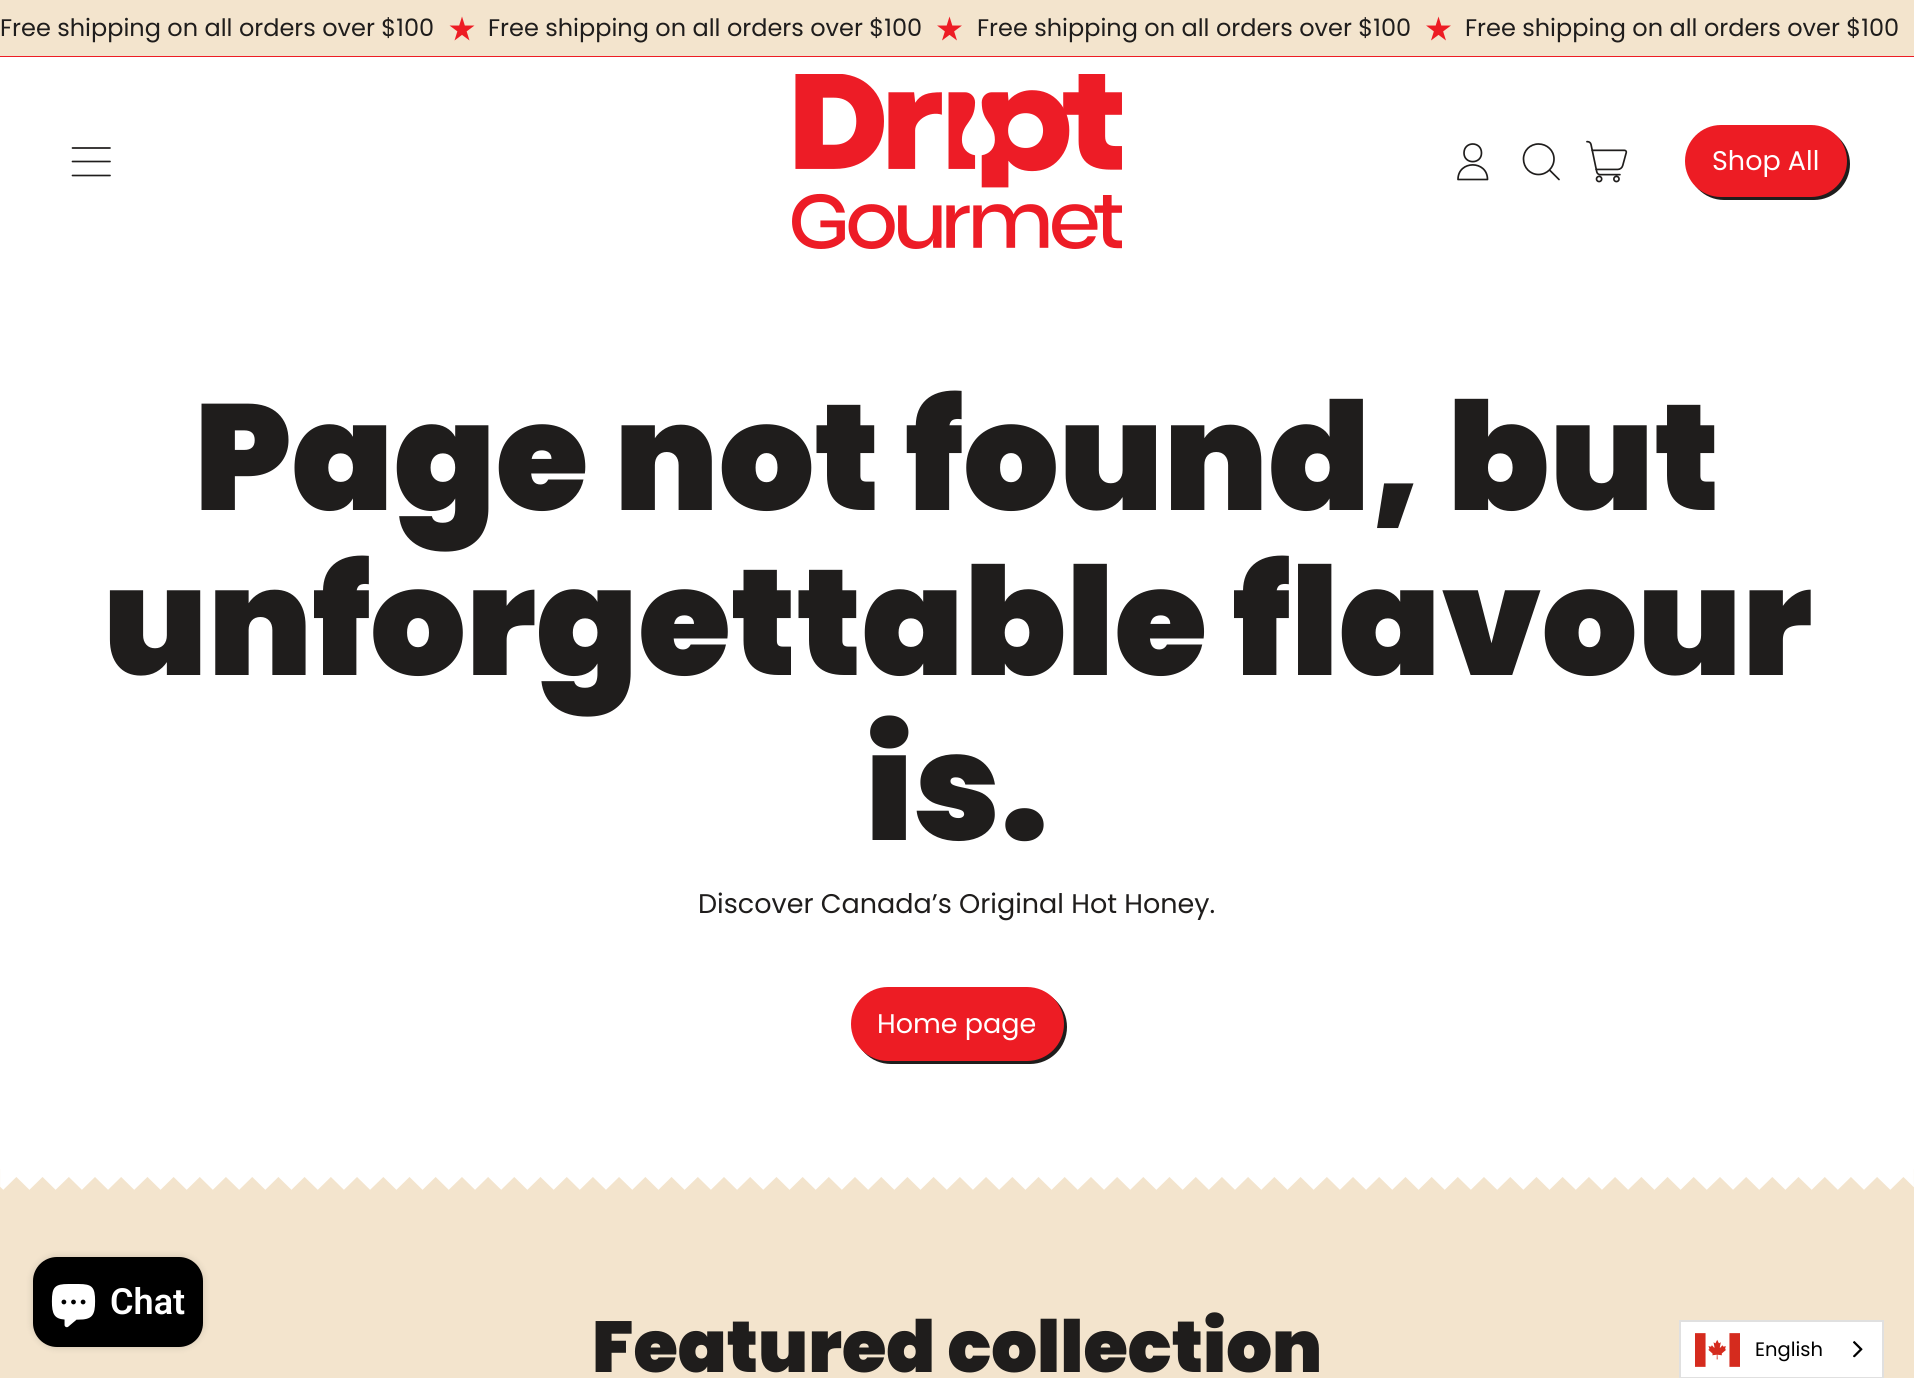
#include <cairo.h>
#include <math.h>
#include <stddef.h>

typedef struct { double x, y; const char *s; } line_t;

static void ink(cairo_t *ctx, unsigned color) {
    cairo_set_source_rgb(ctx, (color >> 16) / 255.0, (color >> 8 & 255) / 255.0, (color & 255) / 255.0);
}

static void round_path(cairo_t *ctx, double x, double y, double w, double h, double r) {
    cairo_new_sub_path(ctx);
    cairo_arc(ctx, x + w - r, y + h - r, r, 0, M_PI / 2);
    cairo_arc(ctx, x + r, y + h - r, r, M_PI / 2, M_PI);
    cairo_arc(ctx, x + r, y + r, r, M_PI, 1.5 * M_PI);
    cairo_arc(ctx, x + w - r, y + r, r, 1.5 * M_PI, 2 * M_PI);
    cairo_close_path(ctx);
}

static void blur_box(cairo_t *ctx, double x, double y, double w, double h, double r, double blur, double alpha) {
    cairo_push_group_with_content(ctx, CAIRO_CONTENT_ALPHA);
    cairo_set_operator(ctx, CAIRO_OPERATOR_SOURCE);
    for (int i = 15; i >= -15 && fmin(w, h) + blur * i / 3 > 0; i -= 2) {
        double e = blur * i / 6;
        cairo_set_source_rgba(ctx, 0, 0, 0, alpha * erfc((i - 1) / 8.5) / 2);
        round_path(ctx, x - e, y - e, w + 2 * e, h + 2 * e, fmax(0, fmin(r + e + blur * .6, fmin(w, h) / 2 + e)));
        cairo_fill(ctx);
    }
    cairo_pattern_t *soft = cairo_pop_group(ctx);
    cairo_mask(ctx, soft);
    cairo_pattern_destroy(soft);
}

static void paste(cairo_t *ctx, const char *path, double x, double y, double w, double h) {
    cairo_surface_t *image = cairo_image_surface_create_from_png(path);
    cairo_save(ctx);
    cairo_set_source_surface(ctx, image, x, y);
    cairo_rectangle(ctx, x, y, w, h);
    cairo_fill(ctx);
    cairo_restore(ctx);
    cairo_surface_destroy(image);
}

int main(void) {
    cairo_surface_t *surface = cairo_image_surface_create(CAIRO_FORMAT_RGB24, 1914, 1378);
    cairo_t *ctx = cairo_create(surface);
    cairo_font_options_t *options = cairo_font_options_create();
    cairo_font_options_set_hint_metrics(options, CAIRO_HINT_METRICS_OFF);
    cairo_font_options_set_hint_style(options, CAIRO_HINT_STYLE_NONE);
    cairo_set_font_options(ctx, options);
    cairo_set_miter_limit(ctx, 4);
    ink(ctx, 0xFFFFFF);
    cairo_paint(ctx);
    ink(ctx, 0xF3E4CD);
    cairo_rectangle(ctx, 0, 0, 1914, 56);
    cairo_fill(ctx);
    ink(ctx, 0xED1C24);
    cairo_rectangle(ctx, 0, 56, 1914, 1);
    cairo_fill(ctx);
    cairo_select_font_face(ctx, "Poppins", CAIRO_FONT_SLANT_NORMAL, CAIRO_FONT_WEIGHT_NORMAL);
    cairo_set_font_size(ctx, 24);
    ink(ctx, 0x1F1D1C);
    cairo_move_to(ctx, 0, 36);
    cairo_show_text(ctx, "Free shipping on all orders over $100");
    ink(ctx, 0xED1C24);
    cairo_new_path(ctx);
    cairo_move_to(ctx, 454.5, 40.5);
    cairo_line_to(ctx, 462, 16.5);
    cairo_line_to(ctx, 469.5, 40.5);
    cairo_line_to(ctx, 449.5, 25.5);
    cairo_line_to(ctx, 474.5, 25.5);
    cairo_fill(ctx);
    ink(ctx, 0x1F1D1C);
    cairo_move_to(ctx, 488, 36);
    cairo_show_text(ctx, "Free shipping on all orders over $100");
    ink(ctx, 0xED1C24);
    cairo_new_path(ctx);
    cairo_move_to(ctx, 942, 40.5);
    cairo_line_to(ctx, 949.5, 16.5);
    cairo_line_to(ctx, 957, 40.5);
    cairo_line_to(ctx, 937, 25.5);
    cairo_line_to(ctx, 962, 25.5);
    cairo_fill(ctx);
    ink(ctx, 0x1F1D1C);
    cairo_move_to(ctx, 977, 36);
    cairo_show_text(ctx, "Free shipping on all orders over $100");
    ink(ctx, 0xED1C24);
    cairo_new_path(ctx);
    cairo_move_to(ctx, 1431, 40.5);
    cairo_line_to(ctx, 1438.5, 16.5);
    cairo_line_to(ctx, 1446, 40.5);
    cairo_line_to(ctx, 1426, 25.5);
    cairo_line_to(ctx, 1451, 25.5);
    cairo_fill(ctx);
    ink(ctx, 0x1F1D1C);
    cairo_move_to(ctx, 1465, 36);
    cairo_show_text(ctx, "Free shipping on all orders over $100");
    cairo_new_path(ctx);
    cairo_move_to(ctx, 110, 175.5);
    cairo_line_to(ctx, 72.5, 175.5);
    cairo_move_to(ctx, 110, 161.5);
    cairo_line_to(ctx, 72.5, 161.5);
    cairo_move_to(ctx, 110, 148);
    cairo_line_to(ctx, 72.5, 148);
    cairo_set_line_width(ctx, 1.7);
    cairo_set_line_cap(ctx, CAIRO_LINE_CAP_ROUND);
    cairo_set_line_join(ctx, CAIRO_LINE_JOIN_ROUND);
    cairo_stroke(ctx);
    paste(ctx, "media/1.png", 792, 74, 330, 175);
    cairo_new_path(ctx);
    cairo_move_to(ctx, 1464, 153);
    cairo_curve_to(ctx, 1464, 164.5, 1481.5, 164.5, 1481.5, 153);
    cairo_curve_to(ctx, 1481.5, 141, 1464, 141, 1464, 153);
    cairo_close_path(ctx);
    cairo_move_to(ctx, 1458, 179.5);
    cairo_curve_to(ctx, 1458, 160, 1487.5, 160, 1487.5, 179.5);
    cairo_close_path(ctx);
    cairo_stroke(ctx);
    cairo_new_path(ctx);
    cairo_move_to(ctx, 1523.5, 159);
    cairo_curve_to(ctx, 1523.5, 167.5, 1530, 174.5, 1538.5, 174.5);
    cairo_curve_to(ctx, 1547, 174.5, 1554, 167.5, 1554, 159);
    cairo_curve_to(ctx, 1554, 150.5, 1547, 144, 1538.5, 144);
    cairo_curve_to(ctx, 1530, 144, 1523.5, 150.5, 1523.5, 159);
    cairo_close_path(ctx);
    cairo_move_to(ctx, 1559, 179.5);
    cairo_line_to(ctx, 1550, 170.5);
    cairo_stroke(ctx);
    paste(ctx, "media/2.png", 1586, 140, 42, 43);
    round_path(ctx, 1688, 128, 162, 72, 36);
    cairo_fill(ctx);
    ink(ctx, 0xED1C24);
    round_path(ctx, 1685, 125, 162, 72, 36);
    cairo_fill(ctx);
    cairo_set_font_size(ctx, 27);
    ink(ctx, 0xFFFFFF);
    cairo_move_to(ctx, 1712, 170);
    cairo_show_text(ctx, "Shop All");
    cairo_select_font_face(ctx, "Poppins Black", CAIRO_FONT_SLANT_NORMAL, CAIRO_FONT_WEIGHT_NORMAL);
    cairo_set_font_size(ctx, 150.25);
    ink(ctx, 0x1F1D1C);
    {
        static const line_t items[] = {
            {194, 510, "Page not found, but"},
            {103, 675, "unforgettable flavour"},
            {865, 840, "is."},
        };
        for (size_t i = 0; i < sizeof items / sizeof *items; i++) {
            cairo_move_to(ctx, items[i].x, items[i].y);
            cairo_show_text(ctx, items[i].s);
        }
    }
    cairo_select_font_face(ctx, "Poppins", CAIRO_FONT_SLANT_NORMAL, CAIRO_FONT_WEIGHT_NORMAL);
    cairo_set_font_size(ctx, 27);
    cairo_move_to(ctx, 698, 913);
    cairo_show_text(ctx, "Discover Canada’s Original Hot Honey.");
    round_path(ctx, 854, 990, 213, 74, 37);
    cairo_fill(ctx);
    ink(ctx, 0xED1C24);
    round_path(ctx, 851, 987, 213, 74, 37);
    cairo_fill(ctx);
    ink(ctx, 0xFFFFFF);
    cairo_move_to(ctx, 877, 1033);
    cairo_show_text(ctx, "Home page");
    ink(ctx, 0xF3E4CD);
    cairo_rectangle(ctx, 0, 1169, 1914, 209);
    cairo_fill(ctx);
    paste(ctx, "media/3.png", 0, 1169, 1914, 21);
    cairo_select_font_face(ctx, "Poppins Black", CAIRO_FONT_SLANT_NORMAL, CAIRO_FONT_WEIGHT_NORMAL);
    cairo_set_font_size(ctx, 72);
    ink(ctx, 0x1F1D1C);
    cairo_move_to(ctx, 592, 1372);
    cairo_show_text(ctx, "Featured collection");
    ink(ctx, 0x000000);
    blur_box(ctx, 33, 1257, 170, 90, 24, 4, 0.15);
    ink(ctx, 0x000000);
    round_path(ctx, 33, 1257, 170, 90, 24);
    cairo_fill(ctx);
    paste(ctx, "media/4.png", 51, 1284, 45, 44);
    cairo_select_font_face(ctx, "Roboto SemiBold", CAIRO_FONT_SLANT_NORMAL, CAIRO_FONT_WEIGHT_NORMAL);
    cairo_set_font_size(ctx, 36);
    ink(ctx, 0xFFFFFF);
    cairo_move_to(ctx, 110, 1314);
    cairo_show_text(ctx, "Chat");
    cairo_rectangle(ctx, 1680, 1321, 203, 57);
    cairo_fill_preserve(ctx);
    ink(ctx, 0xE0E0E0);
    cairo_set_line_width(ctx, 2);
    cairo_set_line_cap(ctx, CAIRO_LINE_CAP_BUTT);
    cairo_set_line_join(ctx, CAIRO_LINE_JOIN_MITER);
    cairo_stroke(ctx);
    paste(ctx, "media/5.png", 1695, 1333, 45, 34);
    cairo_select_font_face(ctx, "Poppins", CAIRO_FONT_SLANT_NORMAL, CAIRO_FONT_WEIGHT_NORMAL);
    cairo_set_font_size(ctx, 19.5);
    ink(ctx, 0x000000);
    cairo_move_to(ctx, 1755, 1356);
    cairo_show_text(ctx, "English");
    paste(ctx, "media/6.png", 1853, 1341, 10, 17);
    cairo_surface_write_to_png(surface, "image.png");
    cairo_font_options_destroy(options);
    cairo_destroy(ctx);
    cairo_surface_destroy(surface);
    return 0;
}
